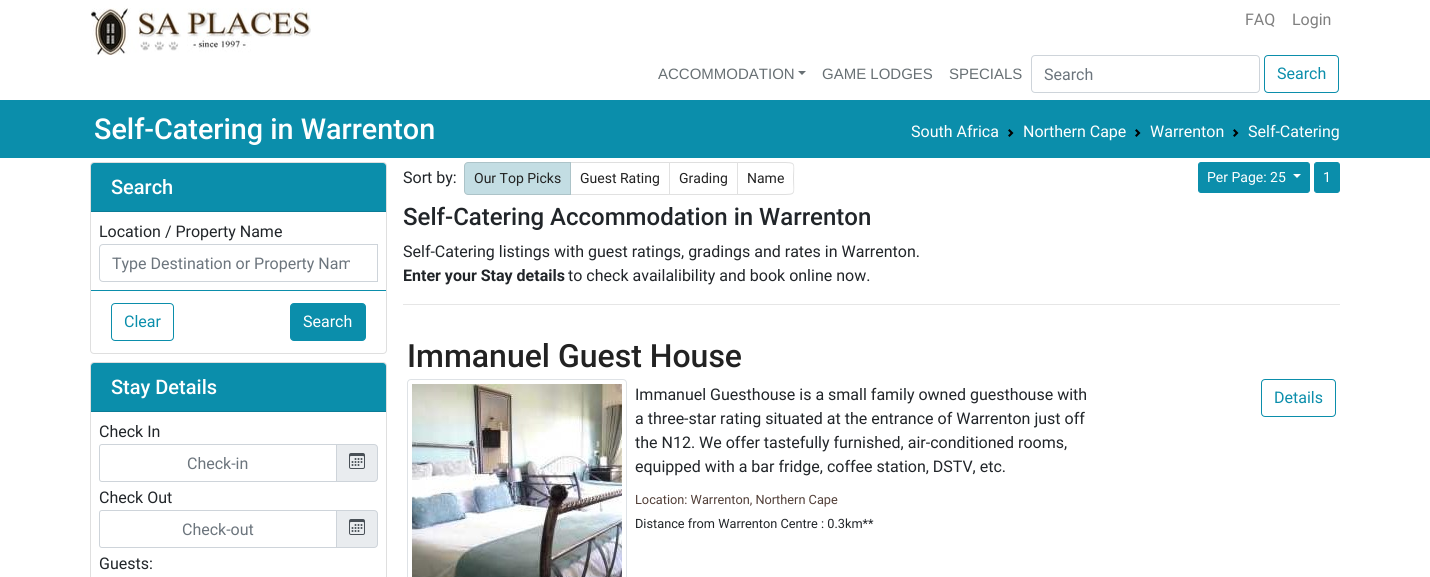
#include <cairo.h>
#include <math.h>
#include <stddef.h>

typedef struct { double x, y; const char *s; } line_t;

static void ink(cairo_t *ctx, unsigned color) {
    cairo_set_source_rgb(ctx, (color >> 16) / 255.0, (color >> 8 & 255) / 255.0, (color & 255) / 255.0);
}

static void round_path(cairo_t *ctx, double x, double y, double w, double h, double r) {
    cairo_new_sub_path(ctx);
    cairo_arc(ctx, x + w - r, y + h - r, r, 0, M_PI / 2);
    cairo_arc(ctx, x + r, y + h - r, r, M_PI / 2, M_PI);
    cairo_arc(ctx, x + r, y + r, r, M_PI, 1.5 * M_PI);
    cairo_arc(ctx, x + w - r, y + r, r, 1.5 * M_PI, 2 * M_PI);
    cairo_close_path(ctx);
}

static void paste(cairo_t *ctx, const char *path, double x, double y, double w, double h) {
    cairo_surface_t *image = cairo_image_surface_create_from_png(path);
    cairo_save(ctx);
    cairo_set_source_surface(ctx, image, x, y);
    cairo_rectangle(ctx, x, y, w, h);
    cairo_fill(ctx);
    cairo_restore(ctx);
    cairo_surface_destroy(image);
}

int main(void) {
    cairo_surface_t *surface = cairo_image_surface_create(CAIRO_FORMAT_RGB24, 1430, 577);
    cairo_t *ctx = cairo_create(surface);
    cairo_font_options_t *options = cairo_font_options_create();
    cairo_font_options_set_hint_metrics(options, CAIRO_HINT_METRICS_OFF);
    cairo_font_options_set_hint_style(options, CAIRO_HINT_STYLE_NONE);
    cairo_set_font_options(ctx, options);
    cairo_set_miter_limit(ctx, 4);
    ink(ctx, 0xFFFFFF);
    cairo_paint(ctx);
    paste(ctx, "media/1.png", 91, 8, 220, 47);
    cairo_select_font_face(ctx, "Roboto", CAIRO_FONT_SLANT_NORMAL, CAIRO_FONT_WEIGHT_NORMAL);
    cairo_set_font_size(ctx, 16);
    ink(ctx, 0x808080);
    cairo_move_to(ctx, 1245, 25);
    cairo_show_text(ctx, "FAQ");
    cairo_move_to(ctx, 1292, 25);
    cairo_show_text(ctx, "Login");
    cairo_select_font_face(ctx, "Liberation Sans", CAIRO_FONT_SLANT_NORMAL, CAIRO_FONT_WEIGHT_NORMAL);
    cairo_set_font_size(ctx, 15);
    ink(ctx, 0x687074);
    cairo_move_to(ctx, 658, 79);
    cairo_show_text(ctx, "ACCOMMODATION");
    cairo_new_path(ctx);
    cairo_move_to(ctx, 798, 71);
    cairo_line_to(ctx, 806, 71);
    cairo_line_to(ctx, 802, 75);
    cairo_close_path(ctx);
    cairo_fill(ctx);
    cairo_move_to(ctx, 822, 79);
    cairo_show_text(ctx, "GAME LODGES");
    cairo_move_to(ctx, 949, 79);
    cairo_show_text(ctx, "SPECIALS");
    round_path(ctx, 1031.5, 55.5, 228, 37, 3.5);
    ink(ctx, 0xCED4DA);
    cairo_set_line_width(ctx, 1);
    cairo_stroke(ctx);
    cairo_select_font_face(ctx, "Roboto", CAIRO_FONT_SLANT_NORMAL, CAIRO_FONT_WEIGHT_NORMAL);
    cairo_set_font_size(ctx, 16);
    ink(ctx, 0x6C757D);
    cairo_move_to(ctx, 1044, 80);
    cairo_show_text(ctx, "Search");
    round_path(ctx, 1264.5, 55.5, 74, 37, 3.5);
    ink(ctx, 0x0B8EAB);
    cairo_stroke(ctx);
    cairo_move_to(ctx, 1277, 79);
    cairo_show_text(ctx, "Search");
    cairo_rectangle(ctx, 0, 100, 1430, 58);
    cairo_fill(ctx);
    cairo_select_font_face(ctx, "Roboto Medium", CAIRO_FONT_SLANT_NORMAL, CAIRO_FONT_WEIGHT_NORMAL);
    cairo_set_font_size(ctx, 28.75);
    ink(ctx, 0xFFFFFF);
    cairo_move_to(ctx, 94, 139);
    cairo_show_text(ctx, "Self-Catering in Warrenton");
    cairo_select_font_face(ctx, "Roboto", CAIRO_FONT_SLANT_NORMAL, CAIRO_FONT_WEIGHT_NORMAL);
    cairo_set_font_size(ctx, 16);
    cairo_move_to(ctx, 911, 137);
    cairo_show_text(ctx, "South Africa");
    paste(ctx, "media/2.png", 1008, 129, 6, 8);
    cairo_move_to(ctx, 1023, 137);
    cairo_show_text(ctx, "Northern Cape");
    paste(ctx, "media/2.png", 1135, 129, 6, 8);
    cairo_move_to(ctx, 1150, 137);
    cairo_show_text(ctx, "Warrenton");
    paste(ctx, "media/2.png", 1233, 129, 6, 8);
    cairo_move_to(ctx, 1248, 137);
    cairo_show_text(ctx, "Self-Catering");
    round_path(ctx, 90.5, 162.5, 296, 191, 3.5);
    ink(ctx, 0xDFDFDF);
    cairo_stroke(ctx);
    ink(ctx, 0x0B8EAB);
    cairo_new_path(ctx);
    cairo_move_to(ctx, 94, 163);
    cairo_line_to(ctx, 383, 163);
    cairo_curve_to(ctx, 384.5, 163, 386, 164.5, 386, 166);
    cairo_line_to(ctx, 386, 212);
    cairo_line_to(ctx, 91, 212);
    cairo_line_to(ctx, 91, 166);
    cairo_curve_to(ctx, 91, 164.5, 92.5, 163, 94, 163);
    cairo_close_path(ctx);
    cairo_fill(ctx);
    ink(ctx, 0x0A7C96);
    cairo_rectangle(ctx, 91, 211, 295, 1);
    cairo_fill(ctx);
    cairo_select_font_face(ctx, "Roboto Medium", CAIRO_FONT_SLANT_NORMAL, CAIRO_FONT_WEIGHT_NORMAL);
    cairo_set_font_size(ctx, 20);
    ink(ctx, 0xFFFFFF);
    cairo_move_to(ctx, 111, 194);
    cairo_show_text(ctx, "Search");
    cairo_select_font_face(ctx, "Roboto", CAIRO_FONT_SLANT_NORMAL, CAIRO_FONT_WEIGHT_NORMAL);
    cairo_set_font_size(ctx, 16);
    ink(ctx, 0x212529);
    cairo_move_to(ctx, 99, 237);
    cairo_show_text(ctx, "Location / Property Name");
    cairo_new_path(ctx);
    cairo_move_to(ctx, 103, 244.5);
    cairo_line_to(ctx, 377.5, 244.5);
    cairo_line_to(ctx, 377.5, 281.5);
    cairo_line_to(ctx, 103, 281.5);
    cairo_curve_to(ctx, 101, 281.5, 99.5, 280, 99.5, 278);
    cairo_line_to(ctx, 99.5, 248);
    cairo_curve_to(ctx, 99.5, 246, 101, 244.5, 103, 244.5);
    cairo_close_path(ctx);
    ink(ctx, 0xCED4DA);
    cairo_stroke(ctx);
    cairo_save(ctx);
    cairo_rectangle(ctx, 112, 254, 238, 19);
    cairo_clip(ctx);
    ink(ctx, 0x6C757D);
    cairo_move_to(ctx, 112, 269);
    cairo_show_text(ctx, "Type Destination or Property Nam");
    cairo_restore(ctx);
    ink(ctx, 0x0B8EAB);
    cairo_rectangle(ctx, 91, 290, 295, 1);
    cairo_fill(ctx);
    round_path(ctx, 111.5, 303.5, 62, 37, 3.5);
    cairo_stroke(ctx);
    cairo_move_to(ctx, 124, 327);
    cairo_show_text(ctx, "Clear");
    round_path(ctx, 290.5, 303.5, 75, 37, 3.5);
    cairo_fill_preserve(ctx);
    cairo_stroke(ctx);
    ink(ctx, 0xFFFFFF);
    cairo_move_to(ctx, 303, 327);
    cairo_show_text(ctx, "Search");
    round_path(ctx, 90.5, 362.5, 296, 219, 3.5);
    ink(ctx, 0xDFDFDF);
    cairo_stroke(ctx);
    ink(ctx, 0x0B8EAB);
    cairo_new_path(ctx);
    cairo_move_to(ctx, 94, 363);
    cairo_line_to(ctx, 383, 363);
    cairo_curve_to(ctx, 384.5, 363, 386, 364.5, 386, 366);
    cairo_line_to(ctx, 386, 412);
    cairo_line_to(ctx, 91, 412);
    cairo_line_to(ctx, 91, 366);
    cairo_curve_to(ctx, 91, 364.5, 92.5, 363, 94, 363);
    cairo_close_path(ctx);
    cairo_fill(ctx);
    ink(ctx, 0x0A7C96);
    cairo_rectangle(ctx, 91, 411, 295, 1);
    cairo_fill(ctx);
    cairo_select_font_face(ctx, "Roboto Medium", CAIRO_FONT_SLANT_NORMAL, CAIRO_FONT_WEIGHT_NORMAL);
    cairo_set_font_size(ctx, 20);
    ink(ctx, 0xFFFFFF);
    cairo_move_to(ctx, 111, 394);
    cairo_show_text(ctx, "Stay Details");
    cairo_select_font_face(ctx, "Roboto", CAIRO_FONT_SLANT_NORMAL, CAIRO_FONT_WEIGHT_NORMAL);
    cairo_set_font_size(ctx, 16);
    ink(ctx, 0x212529);
    cairo_move_to(ctx, 99, 437);
    cairo_show_text(ctx, "Check In");
    ink(ctx, 0xE9ECEF);
    cairo_new_path(ctx);
    cairo_move_to(ctx, 336.5, 444.5);
    cairo_line_to(ctx, 374, 444.5);
    cairo_curve_to(ctx, 376, 444.5, 377.5, 446, 377.5, 448);
    cairo_line_to(ctx, 377.5, 478);
    cairo_curve_to(ctx, 377.5, 480, 376, 481.5, 374, 481.5);
    cairo_line_to(ctx, 336.5, 481.5);
    cairo_close_path(ctx);
    cairo_fill_preserve(ctx);
    ink(ctx, 0xCED4DA);
    cairo_stroke(ctx);
    cairo_new_path(ctx);
    cairo_move_to(ctx, 102, 444.5);
    cairo_line_to(ctx, 336.5, 444.5);
    cairo_line_to(ctx, 336.5, 481.5);
    cairo_line_to(ctx, 102, 481.5);
    cairo_curve_to(ctx, 100.5, 481.5, 99.5, 480.5, 99.5, 479);
    cairo_line_to(ctx, 99.5, 447);
    cairo_curve_to(ctx, 99.5, 445.5, 100.5, 444.5, 102, 444.5);
    cairo_close_path(ctx);
    cairo_stroke(ctx);
    ink(ctx, 0x6C757D);
    cairo_move_to(ctx, 187, 469);
    cairo_show_text(ctx, "Check-in");
    paste(ctx, "media/3.png", 349, 453, 16, 16);
    ink(ctx, 0x212529);
    cairo_move_to(ctx, 99, 503);
    cairo_show_text(ctx, "Check Out");
    ink(ctx, 0xE9ECEF);
    cairo_new_path(ctx);
    cairo_move_to(ctx, 336.5, 510.5);
    cairo_line_to(ctx, 374, 510.5);
    cairo_curve_to(ctx, 376, 510.5, 377.5, 512, 377.5, 514);
    cairo_line_to(ctx, 377.5, 544);
    cairo_curve_to(ctx, 377.5, 546, 376, 547.5, 374, 547.5);
    cairo_line_to(ctx, 336.5, 547.5);
    cairo_close_path(ctx);
    cairo_fill_preserve(ctx);
    ink(ctx, 0xCED4DA);
    cairo_stroke(ctx);
    cairo_new_path(ctx);
    cairo_move_to(ctx, 102, 510.5);
    cairo_line_to(ctx, 336.5, 510.5);
    cairo_line_to(ctx, 336.5, 547.5);
    cairo_line_to(ctx, 102, 547.5);
    cairo_curve_to(ctx, 100.5, 547.5, 99.5, 546.5, 99.5, 545);
    cairo_line_to(ctx, 99.5, 513);
    cairo_curve_to(ctx, 99.5, 511.5, 100.5, 510.5, 102, 510.5);
    cairo_close_path(ctx);
    cairo_stroke(ctx);
    ink(ctx, 0x6C757D);
    cairo_move_to(ctx, 182, 535);
    cairo_show_text(ctx, "Check-out");
    paste(ctx, "media/3.png", 349, 519, 16, 16);
    ink(ctx, 0x212529);
    cairo_move_to(ctx, 99, 569);
    cairo_show_text(ctx, "Guests:");
    cairo_move_to(ctx, 403, 183);
    cairo_show_text(ctx, "Sort by:");
    ink(ctx, 0xC3DDE3);
    cairo_new_path(ctx);
    cairo_move_to(ctx, 468, 162);
    cairo_line_to(ctx, 571, 162);
    cairo_line_to(ctx, 571, 195);
    cairo_line_to(ctx, 468, 195);
    cairo_curve_to(ctx, 466, 195, 464, 193, 464, 191);
    cairo_line_to(ctx, 464, 166);
    cairo_curve_to(ctx, 464, 164, 466, 162, 468, 162);
    cairo_close_path(ctx);
    cairo_fill(ctx);
    cairo_new_path(ctx);
    cairo_move_to(ctx, 468, 162.5);
    cairo_line_to(ctx, 570.5, 162.5);
    cairo_line_to(ctx, 570.5, 194.5);
    cairo_line_to(ctx, 468, 194.5);
    cairo_curve_to(ctx, 466, 194.5, 464.5, 193, 464.5, 191);
    cairo_line_to(ctx, 464.5, 166);
    cairo_curve_to(ctx, 464.5, 164, 466, 162.5, 468, 162.5);
    cairo_close_path(ctx);
    cairo_set_source_rgba(ctx, 0, 0, 0, 0.12);
    cairo_stroke(ctx);
    cairo_set_font_size(ctx, 14);
    ink(ctx, 0x222222);
    cairo_move_to(ctx, 474, 183);
    cairo_show_text(ctx, "Our Top Picks");
    ink(ctx, 0xDFDFDF);
    cairo_new_path(ctx);
    cairo_move_to(ctx, 571, 162);
    cairo_line_to(ctx, 670, 162);
    cairo_line_to(ctx, 669, 163);
    cairo_line_to(ctx, 571, 163);
    cairo_close_path(ctx);
    cairo_fill(ctx);
    cairo_set_source_rgba(ctx, 0, 0, 0, 0.12);
    cairo_new_path(ctx);
    cairo_move_to(ctx, 670, 162);
    cairo_line_to(ctx, 670, 195);
    cairo_line_to(ctx, 669, 194);
    cairo_line_to(ctx, 669, 163);
    cairo_close_path(ctx);
    cairo_fill(ctx);
    cairo_new_path(ctx);
    cairo_move_to(ctx, 670, 195);
    cairo_line_to(ctx, 571, 195);
    cairo_line_to(ctx, 571, 194);
    cairo_line_to(ctx, 669, 194);
    cairo_close_path(ctx);
    cairo_fill(ctx);
    ink(ctx, 0x222222);
    cairo_move_to(ctx, 580, 183);
    cairo_show_text(ctx, "Guest Rating");
    ink(ctx, 0xDFDFDF);
    cairo_new_path(ctx);
    cairo_move_to(ctx, 670, 162);
    cairo_line_to(ctx, 738, 162);
    cairo_line_to(ctx, 737, 163);
    cairo_line_to(ctx, 670, 163);
    cairo_close_path(ctx);
    cairo_fill(ctx);
    cairo_set_source_rgba(ctx, 0, 0, 0, 0.12);
    cairo_new_path(ctx);
    cairo_move_to(ctx, 738, 162);
    cairo_line_to(ctx, 738, 195);
    cairo_line_to(ctx, 737, 194);
    cairo_line_to(ctx, 737, 163);
    cairo_close_path(ctx);
    cairo_fill(ctx);
    cairo_new_path(ctx);
    cairo_move_to(ctx, 738, 195);
    cairo_line_to(ctx, 670, 195);
    cairo_line_to(ctx, 670, 194);
    cairo_line_to(ctx, 737, 194);
    cairo_close_path(ctx);
    cairo_fill(ctx);
    ink(ctx, 0x222222);
    cairo_move_to(ctx, 679, 183);
    cairo_show_text(ctx, "Grading");
    ink(ctx, 0xDFDFDF);
    cairo_set_fill_rule(ctx, CAIRO_FILL_RULE_EVEN_ODD);
    cairo_new_path(ctx);
    cairo_move_to(ctx, 738, 162);
    cairo_line_to(ctx, 781, 162);
    cairo_curve_to(ctx, 797, 162, 794, 162, 794, 178);
    cairo_curve_to(ctx, 794, 195, 797, 195, 781, 195);
    cairo_line_to(ctx, 738, 195);
    cairo_close_path(ctx);
    cairo_move_to(ctx, 738, 163);
    cairo_line_to(ctx, 781, 163);
    cairo_curve_to(ctx, 797, 163, 793, 163, 793, 178);
    cairo_curve_to(ctx, 793, 194, 797, 194, 781, 194);
    cairo_line_to(ctx, 738, 194);
    cairo_close_path(ctx);
    cairo_fill(ctx);
    ink(ctx, 0x222222);
    cairo_move_to(ctx, 747, 183);
    cairo_show_text(ctx, "Name");
    ink(ctx, 0x0B8EAB);
    round_path(ctx, 1198.5, 162.5, 111, 30, 2.5);
    cairo_fill_preserve(ctx);
    cairo_stroke(ctx);
    ink(ctx, 0xFFFFFF);
    cairo_move_to(ctx, 1207, 182);
    cairo_show_text(ctx, "Per Page: 25");
    cairo_set_fill_rule(ctx, CAIRO_FILL_RULE_WINDING);
    cairo_new_path(ctx);
    cairo_move_to(ctx, 1293, 174);
    cairo_line_to(ctx, 1301, 174);
    cairo_line_to(ctx, 1297, 178);
    cairo_close_path(ctx);
    cairo_fill(ctx);
    ink(ctx, 0x0B8EAB);
    round_path(ctx, 1314.5, 162.5, 25, 30, 2.5);
    cairo_fill_preserve(ctx);
    cairo_stroke(ctx);
    ink(ctx, 0xFFFFFF);
    cairo_move_to(ctx, 1323, 182);
    cairo_show_text(ctx, "1");
    cairo_select_font_face(ctx, "Roboto Medium", CAIRO_FONT_SLANT_NORMAL, CAIRO_FONT_WEIGHT_NORMAL);
    cairo_set_font_size(ctx, 24);
    ink(ctx, 0x212529);
    cairo_move_to(ctx, 403, 225);
    cairo_show_text(ctx, "Self-Catering Accommodation in Warrenton");
    cairo_select_font_face(ctx, "Roboto", CAIRO_FONT_SLANT_NORMAL, CAIRO_FONT_WEIGHT_NORMAL);
    cairo_set_font_size(ctx, 16);
    cairo_move_to(ctx, 403, 257);
    cairo_show_text(ctx, "Self-Catering listings with guest ratings, gradings and rates in Warrenton.");
    cairo_select_font_face(ctx, "Roboto", CAIRO_FONT_SLANT_NORMAL, CAIRO_FONT_WEIGHT_BOLD);
    cairo_move_to(ctx, 403, 281);
    cairo_show_text(ctx, "Enter your Stay details");
    cairo_select_font_face(ctx, "Roboto", CAIRO_FONT_SLANT_NORMAL, CAIRO_FONT_WEIGHT_NORMAL);
    cairo_move_to(ctx, 568, 281);
    cairo_show_text(ctx, "to check availalibility and book online now.");
    ink(ctx, 0xE6E6E6);
    cairo_rectangle(ctx, 403, 304, 937, 1);
    cairo_fill(ctx);
    cairo_select_font_face(ctx, "Roboto Medium", CAIRO_FONT_SLANT_NORMAL, CAIRO_FONT_WEIGHT_NORMAL);
    cairo_set_font_size(ctx, 32);
    ink(ctx, 0x222222);
    cairo_move_to(ctx, 407, 367);
    cairo_show_text(ctx, "Immanuel Guest House");
    round_path(ctx, 407.5, 379.5, 219, 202, 3.5);
    ink(ctx, 0xDEE2E6);
    cairo_stroke(ctx);
    paste(ctx, "media/4.png", 412, 384, 210, 193);
    cairo_select_font_face(ctx, "Roboto", CAIRO_FONT_SLANT_NORMAL, CAIRO_FONT_WEIGHT_NORMAL);
    cairo_set_font_size(ctx, 16);
    ink(ctx, 0x212529);
    {
        static const line_t items[] = {
            {635, 400, "Immanuel Guesthouse is a small family owned guesthouse with"},
            {635, 424, "a three-star rating situated at the entrance of Warrenton just off"},
            {635, 448, "the N12. We offer tastefully furnished, air-conditioned rooms,"},
            {635, 472, "equipped with a bar fridge, coffee station, DSTV, etc."},
        };
        for (size_t i = 0; i < sizeof items / sizeof *items; i++) {
            cairo_move_to(ctx, items[i].x, items[i].y);
            cairo_show_text(ctx, items[i].s);
        }
    }
    cairo_set_font_size(ctx, 12.75);
    ink(ctx, 0x523F38);
    cairo_move_to(ctx, 635, 504);
    cairo_show_text(ctx, "Location: Warrenton, Northern Cape");
    ink(ctx, 0x212529);
    cairo_move_to(ctx, 635, 528);
    cairo_show_text(ctx, "Distance from Warrenton Centre : 0.3km**");
    round_path(ctx, 1261.5, 379.5, 74, 37, 3.5);
    ink(ctx, 0x0B8EAB);
    cairo_stroke(ctx);
    cairo_set_font_size(ctx, 16);
    cairo_move_to(ctx, 1274, 403);
    cairo_show_text(ctx, "Details");
    cairo_surface_write_to_png(surface, "image.png");
    cairo_font_options_destroy(options);
    cairo_destroy(ctx);
    cairo_surface_destroy(surface);
    return 0;
}
